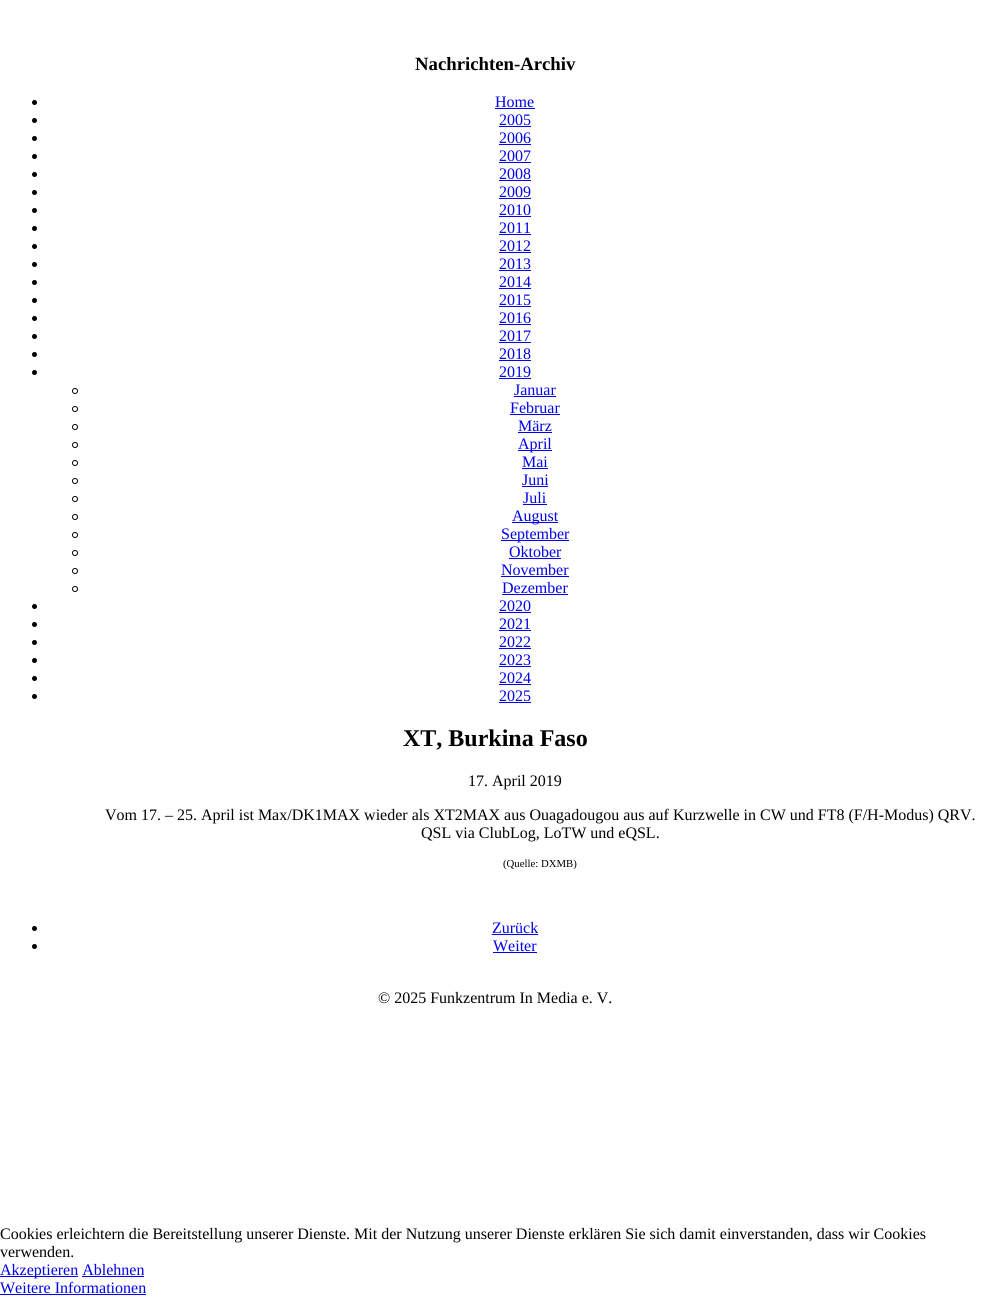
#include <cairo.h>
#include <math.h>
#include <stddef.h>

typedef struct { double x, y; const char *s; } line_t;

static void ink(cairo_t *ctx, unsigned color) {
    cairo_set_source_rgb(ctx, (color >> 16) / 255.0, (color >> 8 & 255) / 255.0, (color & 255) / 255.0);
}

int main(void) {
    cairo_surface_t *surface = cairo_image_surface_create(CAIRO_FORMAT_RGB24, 990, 1297);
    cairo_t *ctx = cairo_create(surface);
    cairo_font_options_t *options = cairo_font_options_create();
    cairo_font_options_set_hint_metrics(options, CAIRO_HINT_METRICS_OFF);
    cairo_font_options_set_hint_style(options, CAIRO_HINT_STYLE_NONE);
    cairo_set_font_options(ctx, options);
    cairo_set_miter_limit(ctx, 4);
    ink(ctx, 0xFFFFFF);
    cairo_paint(ctx);
    cairo_select_font_face(ctx, "Liberation Serif", CAIRO_FONT_SLANT_NORMAL, CAIRO_FONT_WEIGHT_BOLD);
    cairo_set_font_size(ctx, 18.75);
    ink(ctx, 0x000000);
    cairo_move_to(ctx, 415, 70);
    cairo_show_text(ctx, "Nachrichten-Archiv");
    cairo_new_path(ctx);
    cairo_arc(ctx, 34.5, 102.5, 2.5, 0, 2 * M_PI);
    cairo_fill(ctx);
    cairo_select_font_face(ctx, "Liberation Serif", CAIRO_FONT_SLANT_NORMAL, CAIRO_FONT_WEIGHT_NORMAL);
    cairo_set_font_size(ctx, 16);
    ink(ctx, 0x0000EE);
    cairo_move_to(ctx, 495, 107);
    cairo_show_text(ctx, "Home");
    cairo_rectangle(ctx, 495, 108, 40, 1);
    cairo_fill(ctx);
    ink(ctx, 0x000000);
    cairo_arc(ctx, 34.5, 120.5, 2.5, 0, 2 * M_PI);
    cairo_fill(ctx);
    ink(ctx, 0x0000EE);
    cairo_move_to(ctx, 499, 125);
    cairo_show_text(ctx, "2005");
    cairo_rectangle(ctx, 499, 126, 32, 1);
    cairo_fill(ctx);
    ink(ctx, 0x000000);
    cairo_arc(ctx, 34.5, 138.5, 2.5, 0, 2 * M_PI);
    cairo_fill(ctx);
    ink(ctx, 0x0000EE);
    cairo_move_to(ctx, 499, 143);
    cairo_show_text(ctx, "2006");
    cairo_rectangle(ctx, 499, 144, 32, 1);
    cairo_fill(ctx);
    ink(ctx, 0x000000);
    cairo_arc(ctx, 34.5, 156.5, 2.5, 0, 2 * M_PI);
    cairo_fill(ctx);
    ink(ctx, 0x0000EE);
    cairo_move_to(ctx, 499, 161);
    cairo_show_text(ctx, "2007");
    cairo_rectangle(ctx, 499, 162, 32, 1);
    cairo_fill(ctx);
    ink(ctx, 0x000000);
    cairo_arc(ctx, 34.5, 174.5, 2.5, 0, 2 * M_PI);
    cairo_fill(ctx);
    ink(ctx, 0x0000EE);
    cairo_move_to(ctx, 499, 179);
    cairo_show_text(ctx, "2008");
    cairo_rectangle(ctx, 499, 180, 32, 1);
    cairo_fill(ctx);
    ink(ctx, 0x000000);
    cairo_arc(ctx, 34.5, 192.5, 2.5, 0, 2 * M_PI);
    cairo_fill(ctx);
    ink(ctx, 0x0000EE);
    cairo_move_to(ctx, 499, 197);
    cairo_show_text(ctx, "2009");
    cairo_rectangle(ctx, 499, 198, 32, 1);
    cairo_fill(ctx);
    ink(ctx, 0x000000);
    cairo_arc(ctx, 34.5, 210.5, 2.5, 0, 2 * M_PI);
    cairo_fill(ctx);
    ink(ctx, 0x0000EE);
    cairo_move_to(ctx, 499, 215);
    cairo_show_text(ctx, "2010");
    cairo_rectangle(ctx, 499, 216, 32, 1);
    cairo_fill(ctx);
    ink(ctx, 0x000000);
    cairo_arc(ctx, 34.5, 228.5, 2.5, 0, 2 * M_PI);
    cairo_fill(ctx);
    ink(ctx, 0x0000EE);
    cairo_move_to(ctx, 499, 233);
    cairo_show_text(ctx, "2011");
    cairo_rectangle(ctx, 499, 234, 32, 1);
    cairo_fill(ctx);
    ink(ctx, 0x000000);
    cairo_arc(ctx, 34.5, 246.5, 2.5, 0, 2 * M_PI);
    cairo_fill(ctx);
    ink(ctx, 0x0000EE);
    cairo_move_to(ctx, 499, 251);
    cairo_show_text(ctx, "2012");
    cairo_rectangle(ctx, 499, 252, 32, 1);
    cairo_fill(ctx);
    ink(ctx, 0x000000);
    cairo_arc(ctx, 34.5, 264.5, 2.5, 0, 2 * M_PI);
    cairo_fill(ctx);
    ink(ctx, 0x0000EE);
    cairo_move_to(ctx, 499, 269);
    cairo_show_text(ctx, "2013");
    cairo_rectangle(ctx, 499, 270, 32, 1);
    cairo_fill(ctx);
    ink(ctx, 0x000000);
    cairo_arc(ctx, 34.5, 282.5, 2.5, 0, 2 * M_PI);
    cairo_fill(ctx);
    ink(ctx, 0x0000EE);
    cairo_move_to(ctx, 499, 287);
    cairo_show_text(ctx, "2014");
    cairo_rectangle(ctx, 499, 288, 32, 1);
    cairo_fill(ctx);
    ink(ctx, 0x000000);
    cairo_arc(ctx, 34.5, 300.5, 2.5, 0, 2 * M_PI);
    cairo_fill(ctx);
    ink(ctx, 0x0000EE);
    cairo_move_to(ctx, 499, 305);
    cairo_show_text(ctx, "2015");
    cairo_rectangle(ctx, 499, 306, 32, 1);
    cairo_fill(ctx);
    ink(ctx, 0x000000);
    cairo_arc(ctx, 34.5, 318.5, 2.5, 0, 2 * M_PI);
    cairo_fill(ctx);
    ink(ctx, 0x0000EE);
    cairo_move_to(ctx, 499, 323);
    cairo_show_text(ctx, "2016");
    cairo_rectangle(ctx, 499, 324, 32, 1);
    cairo_fill(ctx);
    ink(ctx, 0x000000);
    cairo_arc(ctx, 34.5, 336.5, 2.5, 0, 2 * M_PI);
    cairo_fill(ctx);
    ink(ctx, 0x0000EE);
    cairo_move_to(ctx, 499, 341);
    cairo_show_text(ctx, "2017");
    cairo_rectangle(ctx, 499, 342, 32, 1);
    cairo_fill(ctx);
    ink(ctx, 0x000000);
    cairo_arc(ctx, 34.5, 354.5, 2.5, 0, 2 * M_PI);
    cairo_fill(ctx);
    ink(ctx, 0x0000EE);
    cairo_move_to(ctx, 499, 359);
    cairo_show_text(ctx, "2018");
    cairo_rectangle(ctx, 499, 360, 32, 1);
    cairo_fill(ctx);
    ink(ctx, 0x000000);
    cairo_arc(ctx, 34.5, 372.5, 2.5, 0, 2 * M_PI);
    cairo_fill(ctx);
    ink(ctx, 0x0000EE);
    cairo_move_to(ctx, 499, 377);
    cairo_show_text(ctx, "2019");
    cairo_rectangle(ctx, 499, 378, 32, 1);
    cairo_fill(ctx);
    cairo_arc(ctx, 75, 391, 2.5, 0, 2 * M_PI);
    ink(ctx, 0x000000);
    cairo_set_line_width(ctx, 1);
    cairo_stroke(ctx);
    ink(ctx, 0x0000EE);
    cairo_move_to(ctx, 514, 395);
    cairo_show_text(ctx, "Januar");
    cairo_rectangle(ctx, 514, 396, 42, 1);
    cairo_fill(ctx);
    cairo_arc(ctx, 75, 409, 2.5, 0, 2 * M_PI);
    ink(ctx, 0x000000);
    cairo_stroke(ctx);
    ink(ctx, 0x0000EE);
    cairo_move_to(ctx, 510, 413);
    cairo_show_text(ctx, "Februar");
    cairo_rectangle(ctx, 510, 414, 50, 1);
    cairo_fill(ctx);
    cairo_arc(ctx, 75, 427, 2.5, 0, 2 * M_PI);
    ink(ctx, 0x000000);
    cairo_stroke(ctx);
    ink(ctx, 0x0000EE);
    cairo_move_to(ctx, 518, 431);
    cairo_show_text(ctx, "März");
    cairo_rectangle(ctx, 518, 432, 34, 1);
    cairo_fill(ctx);
    cairo_arc(ctx, 75, 445, 2.5, 0, 2 * M_PI);
    ink(ctx, 0x000000);
    cairo_stroke(ctx);
    ink(ctx, 0x0000EE);
    cairo_rectangle(ctx, 518, 450, 34, 1);
    cairo_fill(ctx);
    cairo_move_to(ctx, 518, 449);
    cairo_show_text(ctx, "April");
    cairo_new_path(ctx);
    cairo_arc(ctx, 75, 463, 2.5, 0, 2 * M_PI);
    ink(ctx, 0x000000);
    cairo_stroke(ctx);
    ink(ctx, 0x0000EE);
    cairo_move_to(ctx, 522, 467);
    cairo_show_text(ctx, "Mai");
    cairo_rectangle(ctx, 522, 468, 26, 1);
    cairo_fill(ctx);
    cairo_arc(ctx, 75, 481, 2.5, 0, 2 * M_PI);
    ink(ctx, 0x000000);
    cairo_stroke(ctx);
    ink(ctx, 0x0000EE);
    cairo_move_to(ctx, 522, 485);
    cairo_show_text(ctx, "Juni");
    cairo_rectangle(ctx, 522, 486, 26, 1);
    cairo_fill(ctx);
    cairo_arc(ctx, 75, 499, 2.5, 0, 2 * M_PI);
    ink(ctx, 0x000000);
    cairo_stroke(ctx);
    ink(ctx, 0x0000EE);
    cairo_move_to(ctx, 523, 503);
    cairo_show_text(ctx, "Juli");
    cairo_rectangle(ctx, 523, 504, 24, 1);
    cairo_fill(ctx);
    cairo_arc(ctx, 75, 517, 2.5, 0, 2 * M_PI);
    ink(ctx, 0x000000);
    cairo_stroke(ctx);
    ink(ctx, 0x0000EE);
    cairo_rectangle(ctx, 512, 522, 46, 1);
    cairo_fill(ctx);
    cairo_move_to(ctx, 512, 521);
    cairo_show_text(ctx, "August");
    cairo_new_path(ctx);
    cairo_arc(ctx, 75, 535, 2.5, 0, 2 * M_PI);
    ink(ctx, 0x000000);
    cairo_stroke(ctx);
    ink(ctx, 0x0000EE);
    cairo_rectangle(ctx, 501, 540, 68, 1);
    cairo_fill(ctx);
    cairo_move_to(ctx, 501, 539);
    cairo_show_text(ctx, "September");
    cairo_new_path(ctx);
    cairo_arc(ctx, 75, 553, 2.5, 0, 2 * M_PI);
    ink(ctx, 0x000000);
    cairo_stroke(ctx);
    ink(ctx, 0x0000EE);
    cairo_move_to(ctx, 509, 557);
    cairo_show_text(ctx, "Oktober");
    cairo_rectangle(ctx, 509, 558, 52, 1);
    cairo_fill(ctx);
    cairo_arc(ctx, 75, 571, 2.5, 0, 2 * M_PI);
    ink(ctx, 0x000000);
    cairo_stroke(ctx);
    ink(ctx, 0x0000EE);
    cairo_move_to(ctx, 501, 575);
    cairo_show_text(ctx, "November");
    cairo_rectangle(ctx, 501, 576, 68, 1);
    cairo_fill(ctx);
    cairo_arc(ctx, 75, 589, 2.5, 0, 2 * M_PI);
    ink(ctx, 0x000000);
    cairo_stroke(ctx);
    ink(ctx, 0x0000EE);
    cairo_move_to(ctx, 502, 593);
    cairo_show_text(ctx, "Dezember");
    cairo_rectangle(ctx, 502, 594, 66, 1);
    cairo_fill(ctx);
    ink(ctx, 0x000000);
    cairo_arc(ctx, 34.5, 606.5, 2.5, 0, 2 * M_PI);
    cairo_fill(ctx);
    ink(ctx, 0x0000EE);
    cairo_move_to(ctx, 499, 611);
    cairo_show_text(ctx, "2020");
    cairo_rectangle(ctx, 499, 612, 32, 1);
    cairo_fill(ctx);
    ink(ctx, 0x000000);
    cairo_arc(ctx, 34.5, 624.5, 2.5, 0, 2 * M_PI);
    cairo_fill(ctx);
    ink(ctx, 0x0000EE);
    cairo_move_to(ctx, 499, 629);
    cairo_show_text(ctx, "2021");
    cairo_rectangle(ctx, 499, 630, 32, 1);
    cairo_fill(ctx);
    ink(ctx, 0x000000);
    cairo_arc(ctx, 34.5, 642.5, 2.5, 0, 2 * M_PI);
    cairo_fill(ctx);
    ink(ctx, 0x0000EE);
    cairo_move_to(ctx, 499, 647);
    cairo_show_text(ctx, "2022");
    cairo_rectangle(ctx, 499, 648, 32, 1);
    cairo_fill(ctx);
    ink(ctx, 0x000000);
    cairo_arc(ctx, 34.5, 660.5, 2.5, 0, 2 * M_PI);
    cairo_fill(ctx);
    ink(ctx, 0x0000EE);
    cairo_move_to(ctx, 499, 665);
    cairo_show_text(ctx, "2023");
    cairo_rectangle(ctx, 499, 666, 32, 1);
    cairo_fill(ctx);
    ink(ctx, 0x000000);
    cairo_arc(ctx, 34.5, 678.5, 2.5, 0, 2 * M_PI);
    cairo_fill(ctx);
    ink(ctx, 0x0000EE);
    cairo_move_to(ctx, 499, 683);
    cairo_show_text(ctx, "2024");
    cairo_rectangle(ctx, 499, 684, 32, 1);
    cairo_fill(ctx);
    ink(ctx, 0x000000);
    cairo_arc(ctx, 34.5, 696.5, 2.5, 0, 2 * M_PI);
    cairo_fill(ctx);
    ink(ctx, 0x0000EE);
    cairo_move_to(ctx, 499, 701);
    cairo_show_text(ctx, "2025");
    cairo_rectangle(ctx, 499, 702, 32, 1);
    cairo_fill(ctx);
    cairo_select_font_face(ctx, "Liberation Serif", CAIRO_FONT_SLANT_NORMAL, CAIRO_FONT_WEIGHT_BOLD);
    cairo_set_font_size(ctx, 24);
    ink(ctx, 0x000000);
    cairo_move_to(ctx, 403, 746);
    cairo_show_text(ctx, "XT, Burkina Faso");
    cairo_select_font_face(ctx, "Liberation Serif", CAIRO_FONT_SLANT_NORMAL, CAIRO_FONT_WEIGHT_NORMAL);
    cairo_set_font_size(ctx, 16);
    {
        static const line_t items[] = {
            {468, 786, "17. April 2019"},
            {105, 820, "Vom 17. – 25. April ist Max/DK1MAX wieder als XT2MAX aus Ouagadougou aus auf Kurzwelle in CW und FT8 (F/H-Modus) QRV."},
            {421, 838, "QSL via ClubLog, LoTW und eQSL."},
        };
        for (size_t i = 0; i < sizeof items / sizeof *items; i++) {
            cairo_move_to(ctx, items[i].x, items[i].y);
            cairo_show_text(ctx, items[i].s);
        }
    }
    cairo_set_font_size(ctx, 10.75);
    cairo_move_to(ctx, 503, 867);
    cairo_show_text(ctx, "(Quelle: DXMB)");
    cairo_new_path(ctx);
    cairo_arc(ctx, 34.5, 928.5, 2.5, 0, 2 * M_PI);
    cairo_fill(ctx);
    cairo_set_font_size(ctx, 16);
    ink(ctx, 0x0000EE);
    cairo_move_to(ctx, 492, 933);
    cairo_show_text(ctx, "Zurück");
    cairo_rectangle(ctx, 492, 934, 46, 1);
    cairo_fill(ctx);
    ink(ctx, 0x000000);
    cairo_arc(ctx, 34.5, 946.5, 2.5, 0, 2 * M_PI);
    cairo_fill(ctx);
    ink(ctx, 0x0000EE);
    cairo_move_to(ctx, 493, 951);
    cairo_show_text(ctx, "Weiter");
    cairo_rectangle(ctx, 493, 952, 44, 1);
    cairo_fill(ctx);
    ink(ctx, 0x000000);
    {
        static const line_t items[] = {
            {378, 1003, "© 2025 Funkzentrum In Media e. V."},
            {0, 1239, "Cookies erleichtern die Bereitstellung unserer Dienste. Mit der Nutzung unserer Dienste erklären Sie sich damit einverstanden, dass wir Cookies"},
            {0, 1257, "verwenden."},
        };
        for (size_t i = 0; i < sizeof items / sizeof *items; i++) {
            cairo_move_to(ctx, items[i].x, items[i].y);
            cairo_show_text(ctx, items[i].s);
        }
    }
    ink(ctx, 0x0000EE);
    cairo_rectangle(ctx, 0, 1276, 78, 1);
    cairo_fill(ctx);
    cairo_move_to(ctx, 0, 1275);
    cairo_show_text(ctx, "Akzeptieren Ablehnen");
    cairo_rectangle(ctx, 82, 1276, 62, 1);
    cairo_fill(ctx);
    cairo_move_to(ctx, 0, 1293);
    cairo_show_text(ctx, "Weitere Informationen");
    cairo_rectangle(ctx, 0, 1294, 146, 1);
    cairo_fill(ctx);
    cairo_surface_write_to_png(surface, "image.png");
    cairo_font_options_destroy(options);
    cairo_destroy(ctx);
    cairo_surface_destroy(surface);
    return 0;
}
